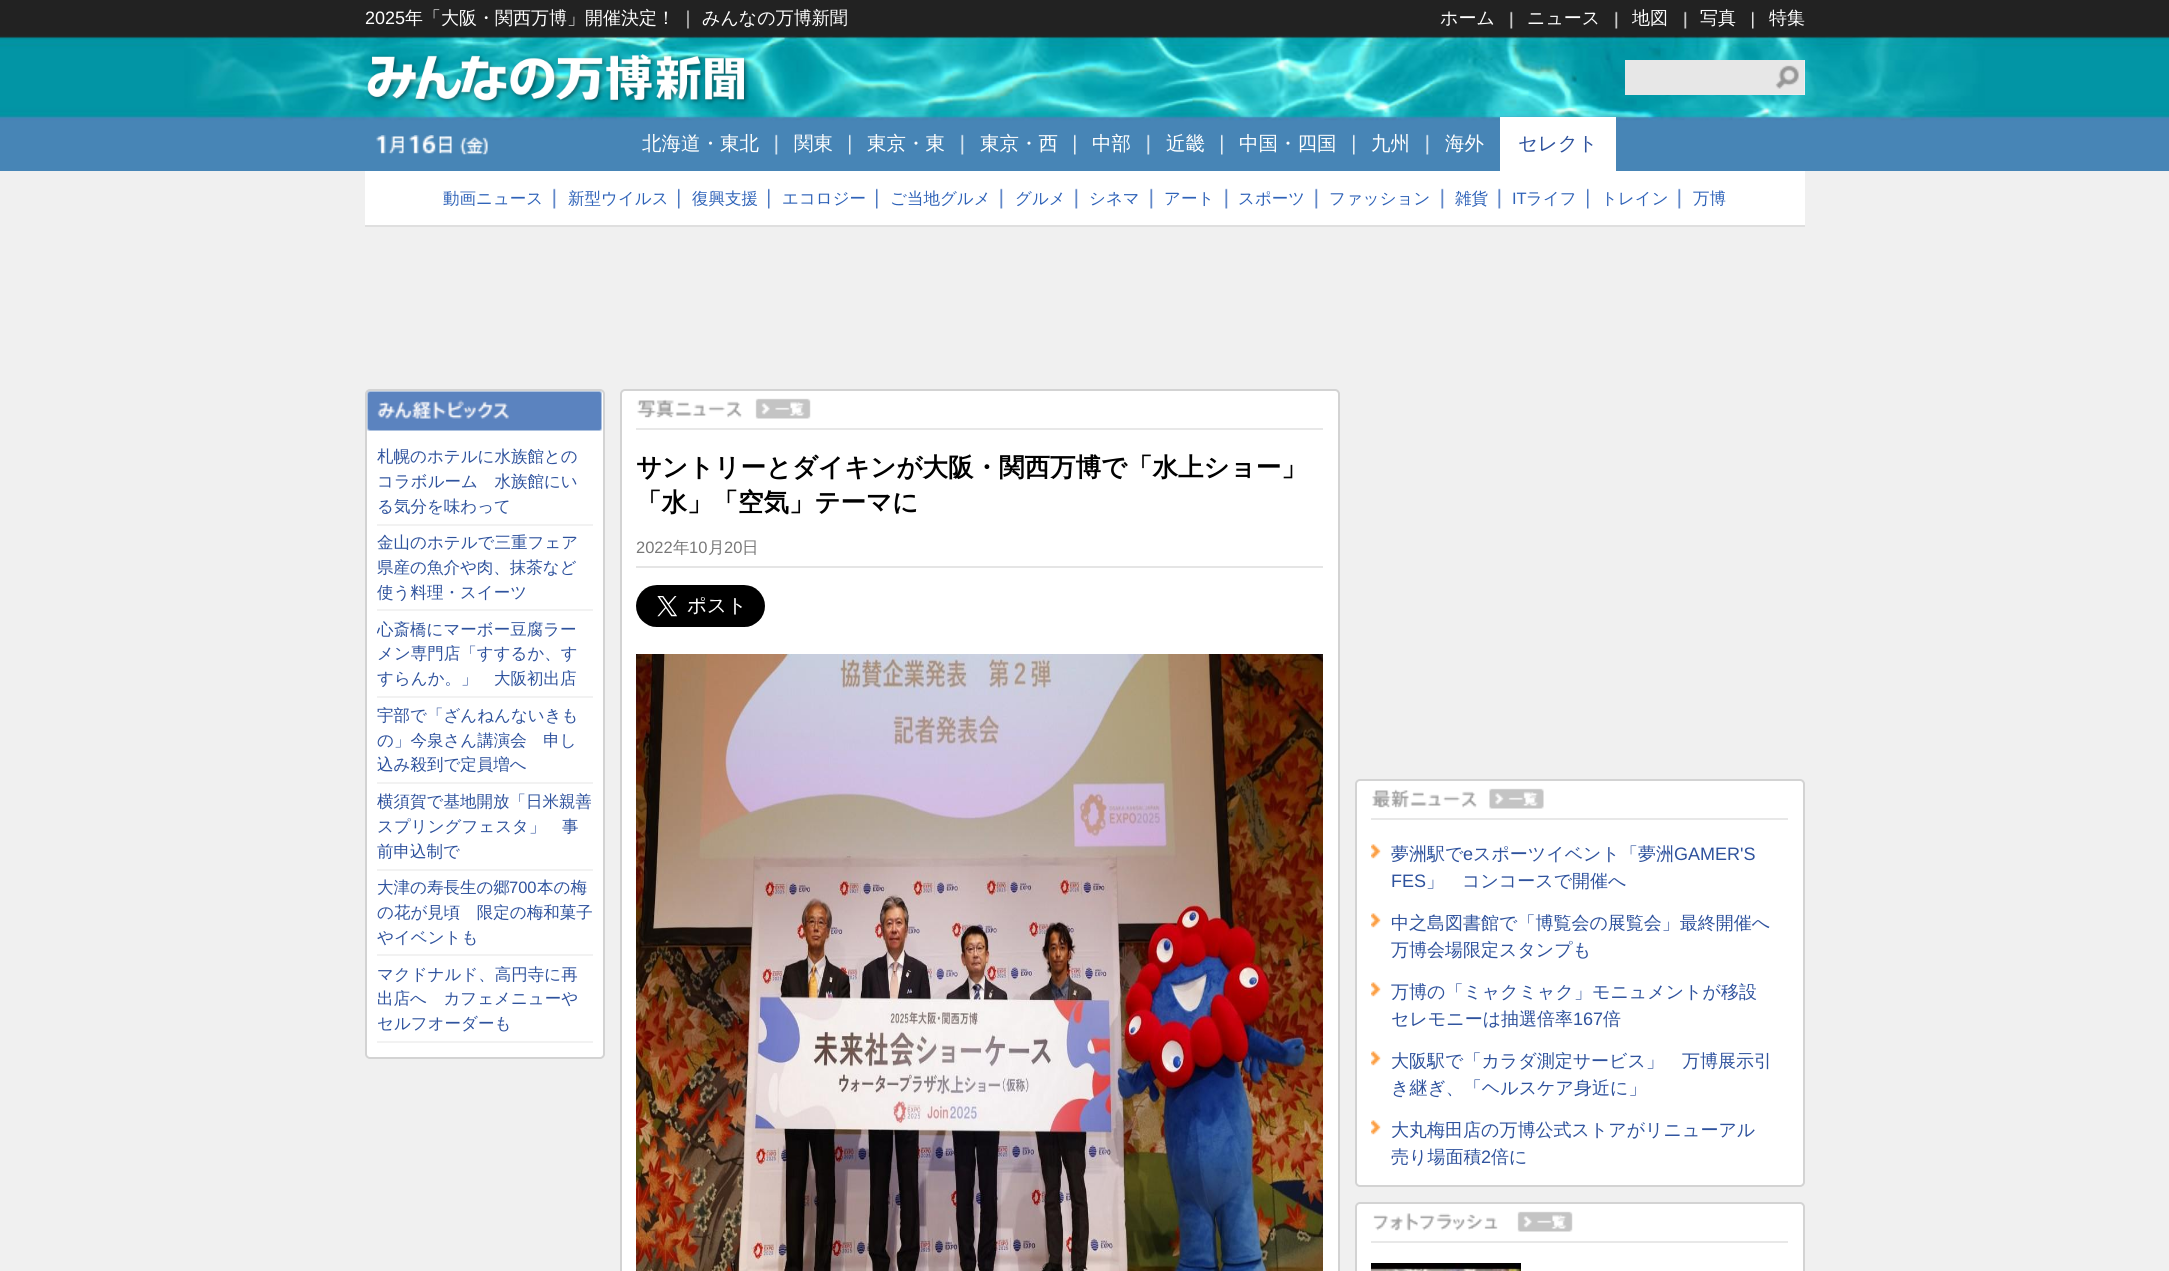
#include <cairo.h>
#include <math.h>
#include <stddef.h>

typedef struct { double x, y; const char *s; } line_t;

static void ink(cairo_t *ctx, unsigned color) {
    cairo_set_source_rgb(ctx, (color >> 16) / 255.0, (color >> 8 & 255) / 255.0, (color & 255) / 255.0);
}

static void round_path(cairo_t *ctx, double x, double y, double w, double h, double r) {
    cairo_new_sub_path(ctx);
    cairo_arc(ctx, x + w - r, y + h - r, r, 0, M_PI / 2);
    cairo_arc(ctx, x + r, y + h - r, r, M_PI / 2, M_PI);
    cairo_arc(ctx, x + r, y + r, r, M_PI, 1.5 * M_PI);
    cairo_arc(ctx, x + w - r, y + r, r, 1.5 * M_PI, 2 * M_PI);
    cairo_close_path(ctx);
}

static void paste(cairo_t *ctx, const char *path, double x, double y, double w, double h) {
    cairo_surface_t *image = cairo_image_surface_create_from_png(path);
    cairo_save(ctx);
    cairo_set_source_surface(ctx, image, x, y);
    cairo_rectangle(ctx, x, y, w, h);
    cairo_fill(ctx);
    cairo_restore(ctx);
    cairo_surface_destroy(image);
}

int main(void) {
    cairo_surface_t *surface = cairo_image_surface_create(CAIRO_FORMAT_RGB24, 2169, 1271);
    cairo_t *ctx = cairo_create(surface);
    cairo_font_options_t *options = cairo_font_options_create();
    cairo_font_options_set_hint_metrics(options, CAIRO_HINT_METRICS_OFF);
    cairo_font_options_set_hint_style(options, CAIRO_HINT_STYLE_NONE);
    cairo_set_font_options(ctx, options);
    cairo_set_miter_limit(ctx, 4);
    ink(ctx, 0xF0F0F0);
    cairo_paint(ctx);
    paste(ctx, "media/1.png", 0, 0, 2169, 171);
    cairo_select_font_face(ctx, "Liberation Sans", CAIRO_FONT_SLANT_NORMAL, CAIRO_FONT_WEIGHT_NORMAL);
    cairo_set_font_size(ctx, 18);
    ink(ctx, 0xFFFFFF);
    cairo_move_to(ctx, 365, 24);
    cairo_show_text(ctx, "2025");
    cairo_select_font_face(ctx, "WenQuanYi Zen Hei Medium", CAIRO_FONT_SLANT_NORMAL, CAIRO_FONT_WEIGHT_NORMAL);
    {
        static const line_t items[] = {
            {405, 24, "年「大阪・関西万博」開催決定！"},
            {679, 24, "｜ みんなの万博新聞"},
            {1440, 24, "ホーム"},
        };
        for (size_t i = 0; i < sizeof items / sizeof *items; i++) {
            cairo_move_to(ctx, items[i].x, items[i].y);
            cairo_show_text(ctx, items[i].s);
        }
    }
    paste(ctx, "media/2.png", 1510, 11, 3, 18);
    cairo_move_to(ctx, 1527, 24);
    cairo_show_text(ctx, "ニュース");
    paste(ctx, "media/2.png", 1615, 11, 3, 18);
    cairo_move_to(ctx, 1632, 24);
    cairo_show_text(ctx, "地図");
    paste(ctx, "media/2.png", 1684, 11, 3, 18);
    cairo_move_to(ctx, 1700, 24);
    cairo_show_text(ctx, "写真");
    paste(ctx, "media/3.png", 1752, 11, 2, 18);
    cairo_move_to(ctx, 1769, 24);
    cairo_show_text(ctx, "特集");
    paste(ctx, "media/4.png", 366, 53, 383, 52);
    ink(ctx, 0xF0F0F0);
    cairo_rectangle(ctx, 1770, 60, 35, 35);
    cairo_fill(ctx);
    ink(ctx, 0xE7E7E7);
    cairo_rectangle(ctx, 1625, 60, 145, 35);
    cairo_fill(ctx);
    paste(ctx, "media/5.png", 1770, 60, 34, 35);
    paste(ctx, "media/6.png", 376, 135, 28, 19);
    paste(ctx, "media/7.png", 409, 135, 43, 19);
    paste(ctx, "media/8.png", 460, 136, 28, 19);
    cairo_set_font_size(ctx, 19.5);
    ink(ctx, 0xFFFFFF);
    cairo_move_to(ctx, 642, 150);
    cairo_show_text(ctx, "北海道・東北");
    paste(ctx, "media/9.png", 775, 134, 3, 21);
    cairo_move_to(ctx, 794, 150);
    cairo_show_text(ctx, "関東");
    paste(ctx, "media/10.png", 849, 134, 2, 21);
    cairo_move_to(ctx, 867, 150);
    cairo_show_text(ctx, "東京・東");
    paste(ctx, "media/9.png", 961, 134, 3, 21);
    cairo_move_to(ctx, 980, 150);
    cairo_show_text(ctx, "東京・西");
    paste(ctx, "media/11.png", 1074, 134, 2, 21);
    cairo_move_to(ctx, 1092, 150);
    cairo_show_text(ctx, "中部");
    paste(ctx, "media/9.png", 1147, 134, 3, 21);
    cairo_move_to(ctx, 1166, 150);
    cairo_show_text(ctx, "近畿");
    paste(ctx, "media/11.png", 1221, 134, 2, 21);
    cairo_move_to(ctx, 1239, 150);
    cairo_show_text(ctx, "中国・四国");
    paste(ctx, "media/11.png", 1353, 134, 2, 21);
    cairo_move_to(ctx, 1371, 150);
    cairo_show_text(ctx, "九州");
    paste(ctx, "media/9.png", 1426, 134, 3, 21);
    cairo_move_to(ctx, 1445, 150);
    cairo_show_text(ctx, "海外");
    cairo_rectangle(ctx, 1500, 117, 116, 54);
    cairo_fill(ctx);
    ink(ctx, 0x2E529D);
    cairo_move_to(ctx, 1518, 150);
    cairo_show_text(ctx, "セレクト");
    ink(ctx, 0xFFFFFF);
    cairo_rectangle(ctx, 365, 171, 1440, 54);
    cairo_fill(ctx);
    ink(ctx, 0xDFDFDF);
    cairo_rectangle(ctx, 365, 225, 1440, 2);
    cairo_fill(ctx);
    cairo_set_font_size(ctx, 16.5);
    ink(ctx, 0x2E62B8);
    cairo_move_to(ctx, 443, 204);
    cairo_show_text(ctx, "動画ニュース");
    paste(ctx, "media/12.png", 553, 188, 3, 21);
    cairo_move_to(ctx, 568, 204);
    cairo_show_text(ctx, "新型ウイルス");
    paste(ctx, "media/13.png", 678, 188, 2, 21);
    cairo_move_to(ctx, 692, 204);
    cairo_show_text(ctx, "復興支援");
    paste(ctx, "media/13.png", 768, 188, 2, 21);
    cairo_move_to(ctx, 782, 204);
    cairo_show_text(ctx, "エコロジー");
    paste(ctx, "media/13.png", 876, 188, 2, 21);
    cairo_move_to(ctx, 890, 204);
    cairo_show_text(ctx, "ご当地グルメ");
    paste(ctx, "media/12.png", 1000, 188, 3, 21);
    cairo_move_to(ctx, 1015, 204);
    cairo_show_text(ctx, "グルメ");
    paste(ctx, "media/12.png", 1075, 188, 3, 21);
    cairo_move_to(ctx, 1089, 204);
    cairo_show_text(ctx, "シネマ");
    paste(ctx, "media/12.png", 1150, 188, 3, 21);
    cairo_move_to(ctx, 1164, 204);
    cairo_show_text(ctx, "アート");
    paste(ctx, "media/12.png", 1225, 188, 3, 21);
    cairo_move_to(ctx, 1238, 204);
    cairo_show_text(ctx, "スポーツ");
    paste(ctx, "media/12.png", 1315, 188, 3, 21);
    cairo_move_to(ctx, 1329, 204);
    cairo_show_text(ctx, "ファッション");
    paste(ctx, "media/12.png", 1441, 188, 3, 21);
    cairo_move_to(ctx, 1455, 204);
    cairo_show_text(ctx, "雑貨");
    paste(ctx, "media/12.png", 1498, 188, 3, 21);
    cairo_select_font_face(ctx, "Liberation Sans", CAIRO_FONT_SLANT_NORMAL, CAIRO_FONT_WEIGHT_NORMAL);
    cairo_move_to(ctx, 1512, 204);
    cairo_show_text(ctx, "IT");
    cairo_select_font_face(ctx, "WenQuanYi Zen Hei Medium", CAIRO_FONT_SLANT_NORMAL, CAIRO_FONT_WEIGHT_NORMAL);
    cairo_move_to(ctx, 1526, 204);
    cairo_show_text(ctx, "ライフ");
    paste(ctx, "media/13.png", 1587, 188, 2, 21);
    cairo_move_to(ctx, 1601, 204);
    cairo_show_text(ctx, "トレイン");
    paste(ctx, "media/12.png", 1678, 188, 3, 21);
    cairo_move_to(ctx, 1693, 204);
    cairo_show_text(ctx, "万博");
    ink(ctx, 0xFFFFFF);
    round_path(ctx, 366, 390, 238, 668, 4);
    cairo_fill_preserve(ctx);
    ink(ctx, 0xD3D3D3);
    cairo_stroke(ctx);
    paste(ctx, "media/14.png", 367, 391, 235, 40);
    ink(ctx, 0xF2F2F2);
    cairo_rectangle(ctx, 377, 524, 216, 2);
    cairo_fill(ctx);
    ink(ctx, 0x2E529D);
    {
        static const line_t items[] = {
            {377, 462, "札幌のホテルに水族館との"},
            {377, 487, "コラボルーム　水族館にい"},
            {377, 512, "る気分を味わって"},
        };
        for (size_t i = 0; i < sizeof items / sizeof *items; i++) {
            cairo_move_to(ctx, items[i].x, items[i].y);
            cairo_show_text(ctx, items[i].s);
        }
    }
    ink(ctx, 0xF2F2F2);
    cairo_rectangle(ctx, 377, 609, 216, 2);
    cairo_fill(ctx);
    ink(ctx, 0x2E529D);
    {
        static const line_t items[] = {
            {377, 548, "金山のホテルで三重フェア"},
            {377, 573, "県産の魚介や肉、抹茶など"},
            {377, 598, "使う料理・スイーツ"},
        };
        for (size_t i = 0; i < sizeof items / sizeof *items; i++) {
            cairo_move_to(ctx, items[i].x, items[i].y);
            cairo_show_text(ctx, items[i].s);
        }
    }
    ink(ctx, 0xF2F2F2);
    cairo_rectangle(ctx, 377, 696, 216, 2);
    cairo_fill(ctx);
    cairo_save(ctx);
    cairo_rectangle(ctx, 377, 611, 216, 85);
    cairo_clip(ctx);
    ink(ctx, 0x2E529D);
    cairo_move_to(ctx, 377, 635);
    cairo_show_text(ctx, "心斎橋にマーボー豆腐ラー");
    cairo_restore(ctx);
    ink(ctx, 0x2E529D);
    cairo_move_to(ctx, 377, 659);
    cairo_show_text(ctx, "メン専門店「すするか、す");
    cairo_move_to(ctx, 377, 684);
    cairo_show_text(ctx, "すらんか。」　大阪初出店");
    ink(ctx, 0xF2F2F2);
    cairo_rectangle(ctx, 377, 782, 216, 2);
    cairo_fill(ctx);
    ink(ctx, 0x2E529D);
    {
        static const line_t items[] = {
            {377, 721, "宇部で「ざんねんないきも"},
            {377, 746, "の」今泉さん講演会　申し"},
            {377, 770, "込み殺到で定員増へ"},
        };
        for (size_t i = 0; i < sizeof items / sizeof *items; i++) {
            cairo_move_to(ctx, items[i].x, items[i].y);
            cairo_show_text(ctx, items[i].s);
        }
    }
    ink(ctx, 0xF2F2F2);
    cairo_rectangle(ctx, 377, 869, 216, 2);
    cairo_fill(ctx);
    ink(ctx, 0x2E529D);
    {
        static const line_t items[] = {
            {377, 807, "横須賀で基地開放「日米親善"},
            {377, 832, "スプリングフェスタ」　事"},
            {377, 857, "前申込制で"},
        };
        for (size_t i = 0; i < sizeof items / sizeof *items; i++) {
            cairo_move_to(ctx, items[i].x, items[i].y);
            cairo_show_text(ctx, items[i].s);
        }
    }
    ink(ctx, 0xF2F2F2);
    cairo_rectangle(ctx, 377, 954, 216, 2);
    cairo_fill(ctx);
    ink(ctx, 0x2E529D);
    cairo_move_to(ctx, 377, 893);
    cairo_show_text(ctx, "大津の寿長生の郷");
    cairo_select_font_face(ctx, "Liberation Sans", CAIRO_FONT_SLANT_NORMAL, CAIRO_FONT_WEIGHT_NORMAL);
    cairo_move_to(ctx, 509, 893);
    cairo_show_text(ctx, "700");
    cairo_select_font_face(ctx, "WenQuanYi Zen Hei Medium", CAIRO_FONT_SLANT_NORMAL, CAIRO_FONT_WEIGHT_NORMAL);
    {
        static const line_t items[] = {
            {537, 893, "本の梅"},
            {377, 918, "の花が見頃　限定の梅和菓子"},
            {377, 943, "やイベントも"},
        };
        for (size_t i = 0; i < sizeof items / sizeof *items; i++) {
            cairo_move_to(ctx, items[i].x, items[i].y);
            cairo_show_text(ctx, items[i].s);
        }
    }
    ink(ctx, 0xF2F2F2);
    cairo_rectangle(ctx, 377, 1041, 216, 2);
    cairo_fill(ctx);
    ink(ctx, 0x2E529D);
    {
        static const line_t items[] = {
            {377, 980, "マクドナルド、高円寺に再"},
            {377, 1004, "出店へ　カフェメニューや"},
            {377, 1029, "セルフオーダーも"},
        };
        for (size_t i = 0; i < sizeof items / sizeof *items; i++) {
            cairo_move_to(ctx, items[i].x, items[i].y);
            cairo_show_text(ctx, items[i].s);
        }
    }
    ink(ctx, 0xFFFFFF);
    round_path(ctx, 621, 390, 718, 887, 4);
    cairo_fill_preserve(ctx);
    ink(ctx, 0xD3D3D3);
    cairo_stroke(ctx);
    paste(ctx, "media/15.png", 637, 398, 174, 21);
    ink(ctx, 0xE8E8E8);
    cairo_rectangle(ctx, 636, 428, 687, 2);
    cairo_fill(ctx);
    cairo_select_font_face(ctx, "WenQuanYi Zen Hei", CAIRO_FONT_SLANT_NORMAL, CAIRO_FONT_WEIGHT_BOLD);
    cairo_set_font_size(ctx, 25.5);
    ink(ctx, 0x000000);
    cairo_move_to(ctx, 636, 476);
    cairo_show_text(ctx, "サントリーとダイキンが大阪・関西万博で「水上ショー」");
    cairo_move_to(ctx, 636, 511);
    cairo_show_text(ctx, "「水」「空気」テーマに");
    ink(ctx, 0xE5E5E5);
    cairo_rectangle(ctx, 636, 566, 687, 2);
    cairo_fill(ctx);
    cairo_select_font_face(ctx, "Liberation Sans", CAIRO_FONT_SLANT_NORMAL, CAIRO_FONT_WEIGHT_NORMAL);
    cairo_set_font_size(ctx, 16.5);
    ink(ctx, 0x777777);
    cairo_move_to(ctx, 636, 553);
    cairo_show_text(ctx, "2022");
    cairo_select_font_face(ctx, "WenQuanYi Zen Hei Medium", CAIRO_FONT_SLANT_NORMAL, CAIRO_FONT_WEIGHT_NORMAL);
    cairo_move_to(ctx, 673, 553);
    cairo_show_text(ctx, "年");
    cairo_select_font_face(ctx, "Liberation Sans", CAIRO_FONT_SLANT_NORMAL, CAIRO_FONT_WEIGHT_NORMAL);
    cairo_move_to(ctx, 689, 553);
    cairo_show_text(ctx, "10");
    cairo_select_font_face(ctx, "WenQuanYi Zen Hei Medium", CAIRO_FONT_SLANT_NORMAL, CAIRO_FONT_WEIGHT_NORMAL);
    cairo_move_to(ctx, 708, 553);
    cairo_show_text(ctx, "月");
    cairo_select_font_face(ctx, "Liberation Sans", CAIRO_FONT_SLANT_NORMAL, CAIRO_FONT_WEIGHT_NORMAL);
    cairo_move_to(ctx, 724, 553);
    cairo_show_text(ctx, "20");
    cairo_select_font_face(ctx, "WenQuanYi Zen Hei Medium", CAIRO_FONT_SLANT_NORMAL, CAIRO_FONT_WEIGHT_NORMAL);
    cairo_move_to(ctx, 742, 553);
    cairo_show_text(ctx, "日");
    paste(ctx, "media/16.png", 636, 585, 129, 42);
    paste(ctx, "media/17.png", 636, 654, 687, 617);
    ink(ctx, 0xFFFFFF);
    round_path(ctx, 1356, 780, 448, 406, 4);
    cairo_fill_preserve(ctx);
    ink(ctx, 0xD3D3D3);
    cairo_stroke(ctx);
    paste(ctx, "media/18.png", 1372, 788, 172, 21);
    ink(ctx, 0xE8E8E8);
    cairo_rectangle(ctx, 1371, 818, 417, 2);
    cairo_fill(ctx);
    paste(ctx, "media/19.png", 1371, 844, 10, 15);
    cairo_set_font_size(ctx, 18);
    ink(ctx, 0x2E529D);
    cairo_move_to(ctx, 1391, 860);
    cairo_show_text(ctx, "夢洲駅で");
    cairo_select_font_face(ctx, "Liberation Sans", CAIRO_FONT_SLANT_NORMAL, CAIRO_FONT_WEIGHT_NORMAL);
    cairo_move_to(ctx, 1463, 860);
    cairo_show_text(ctx, "e");
    cairo_select_font_face(ctx, "WenQuanYi Zen Hei Medium", CAIRO_FONT_SLANT_NORMAL, CAIRO_FONT_WEIGHT_NORMAL);
    cairo_move_to(ctx, 1473, 860);
    cairo_show_text(ctx, "スポーツイベント「夢洲");
    cairo_select_font_face(ctx, "Liberation Sans", CAIRO_FONT_SLANT_NORMAL, CAIRO_FONT_WEIGHT_NORMAL);
    cairo_move_to(ctx, 1674, 860);
    cairo_show_text(ctx, "GAMER'S");
    cairo_move_to(ctx, 1391, 887);
    cairo_show_text(ctx, "FES");
    cairo_select_font_face(ctx, "WenQuanYi Zen Hei Medium", CAIRO_FONT_SLANT_NORMAL, CAIRO_FONT_WEIGHT_NORMAL);
    cairo_move_to(ctx, 1426, 887);
    cairo_show_text(ctx, "」　コンコースで開催へ");
    paste(ctx, "media/19.png", 1371, 913, 10, 15);
    cairo_move_to(ctx, 1391, 929);
    cairo_show_text(ctx, "中之島図書館で「博覧会の展覧会」最終開催へ");
    cairo_move_to(ctx, 1391, 956);
    cairo_show_text(ctx, "万博会場限定スタンプも");
    paste(ctx, "media/19.png", 1371, 982, 10, 15);
    cairo_move_to(ctx, 1391, 998);
    cairo_show_text(ctx, "万博の「ミャクミャク」モニュメントが移設");
    cairo_move_to(ctx, 1391, 1025);
    cairo_show_text(ctx, "セレモニーは抽選倍率");
    cairo_select_font_face(ctx, "Liberation Sans", CAIRO_FONT_SLANT_NORMAL, CAIRO_FONT_WEIGHT_NORMAL);
    cairo_move_to(ctx, 1573, 1025);
    cairo_show_text(ctx, "167");
    cairo_select_font_face(ctx, "WenQuanYi Zen Hei Medium", CAIRO_FONT_SLANT_NORMAL, CAIRO_FONT_WEIGHT_NORMAL);
    cairo_move_to(ctx, 1603, 1025);
    cairo_show_text(ctx, "倍");
    paste(ctx, "media/19.png", 1371, 1051, 10, 15);
    cairo_move_to(ctx, 1391, 1067);
    cairo_show_text(ctx, "大阪駅で「カラダ測定サービス」　万博展示引");
    cairo_move_to(ctx, 1391, 1094);
    cairo_show_text(ctx, "き継ぎ、「ヘルスケア身近に」");
    paste(ctx, "media/19.png", 1371, 1120, 10, 15);
    cairo_move_to(ctx, 1391, 1136);
    cairo_show_text(ctx, "大丸梅田店の万博公式ストアがリニューアル");
    cairo_move_to(ctx, 1391, 1163);
    cairo_show_text(ctx, "売り場面積");
    cairo_select_font_face(ctx, "Liberation Sans", CAIRO_FONT_SLANT_NORMAL, CAIRO_FONT_WEIGHT_NORMAL);
    cairo_move_to(ctx, 1481, 1163);
    cairo_show_text(ctx, "2");
    cairo_select_font_face(ctx, "WenQuanYi Zen Hei Medium", CAIRO_FONT_SLANT_NORMAL, CAIRO_FONT_WEIGHT_NORMAL);
    cairo_move_to(ctx, 1491, 1163);
    cairo_show_text(ctx, "倍に");
    ink(ctx, 0xFFFFFF);
    round_path(ctx, 1356, 1203, 448, 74, 4);
    cairo_fill_preserve(ctx);
    ink(ctx, 0xD3D3D3);
    cairo_stroke(ctx);
    paste(ctx, "media/20.png", 1373, 1211, 200, 21);
    ink(ctx, 0xE8E8E8);
    cairo_rectangle(ctx, 1371, 1241, 417, 2);
    cairo_fill(ctx);
    paste(ctx, "media/21.png", 1371, 1263, 150, 8);
    cairo_surface_write_to_png(surface, "image.png");
    cairo_font_options_destroy(options);
    cairo_destroy(ctx);
    cairo_surface_destroy(surface);
    return 0;
}
